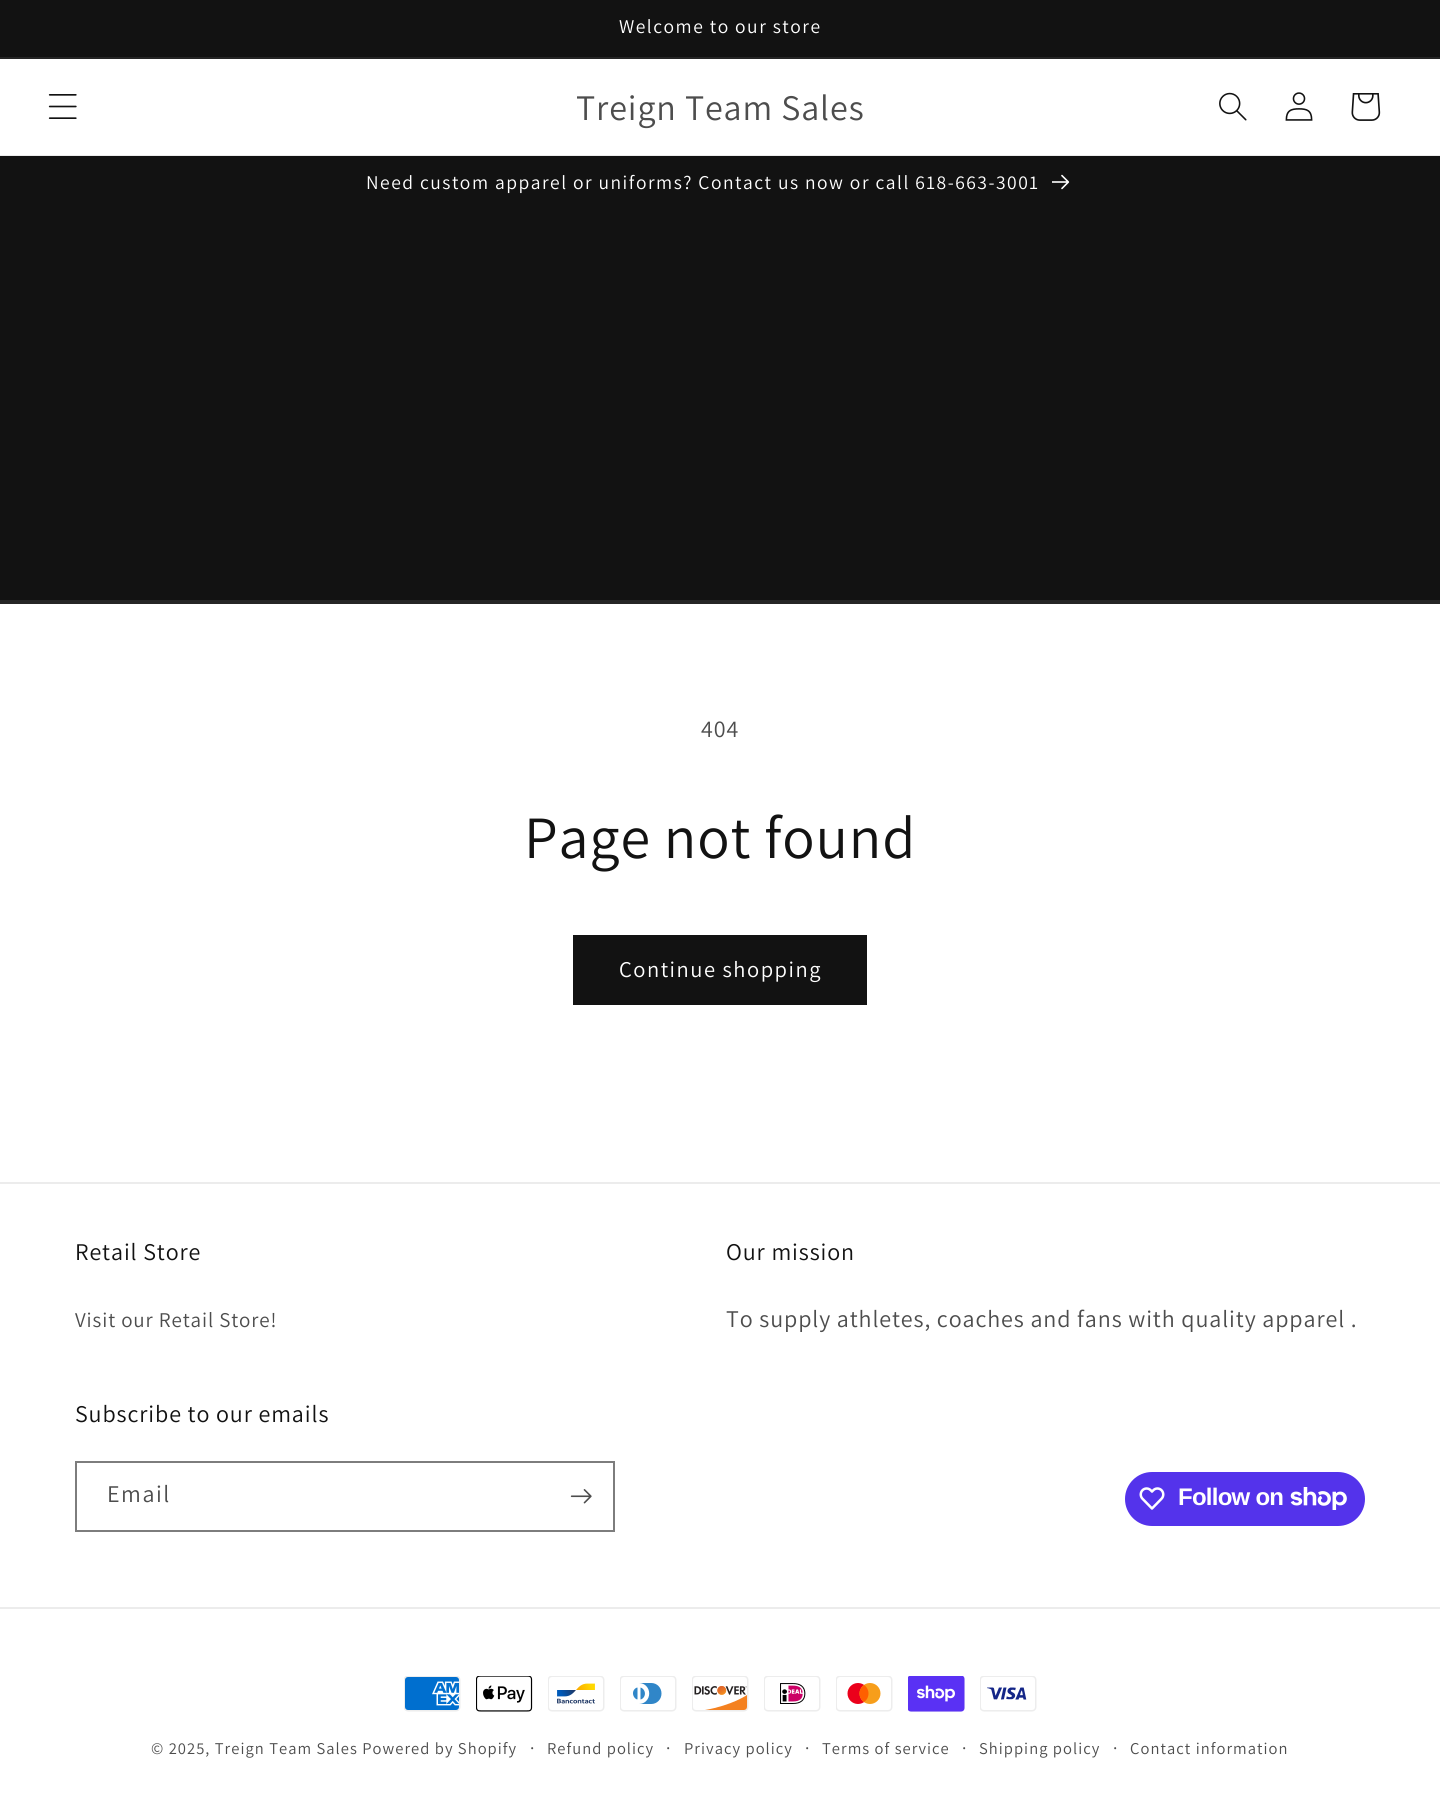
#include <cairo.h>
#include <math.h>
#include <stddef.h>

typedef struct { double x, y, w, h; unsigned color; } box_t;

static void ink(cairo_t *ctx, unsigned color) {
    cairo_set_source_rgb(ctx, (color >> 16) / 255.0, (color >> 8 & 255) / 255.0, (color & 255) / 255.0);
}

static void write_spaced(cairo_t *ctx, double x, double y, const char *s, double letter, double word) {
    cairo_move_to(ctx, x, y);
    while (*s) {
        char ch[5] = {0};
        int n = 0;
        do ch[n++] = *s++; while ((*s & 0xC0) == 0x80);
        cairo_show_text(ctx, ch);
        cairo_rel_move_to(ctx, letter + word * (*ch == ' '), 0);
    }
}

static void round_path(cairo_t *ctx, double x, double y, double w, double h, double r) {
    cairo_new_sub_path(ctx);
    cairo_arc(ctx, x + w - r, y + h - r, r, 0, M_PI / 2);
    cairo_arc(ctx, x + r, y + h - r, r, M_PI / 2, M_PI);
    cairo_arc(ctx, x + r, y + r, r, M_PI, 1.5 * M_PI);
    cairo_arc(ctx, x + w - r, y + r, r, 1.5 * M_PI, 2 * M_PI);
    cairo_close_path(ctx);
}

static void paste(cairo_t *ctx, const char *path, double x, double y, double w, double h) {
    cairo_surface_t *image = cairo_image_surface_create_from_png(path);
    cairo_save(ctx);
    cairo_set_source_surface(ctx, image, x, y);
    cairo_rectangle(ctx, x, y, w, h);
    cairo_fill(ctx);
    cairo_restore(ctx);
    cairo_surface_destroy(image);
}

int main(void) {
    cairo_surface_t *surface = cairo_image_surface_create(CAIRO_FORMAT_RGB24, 1440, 1817);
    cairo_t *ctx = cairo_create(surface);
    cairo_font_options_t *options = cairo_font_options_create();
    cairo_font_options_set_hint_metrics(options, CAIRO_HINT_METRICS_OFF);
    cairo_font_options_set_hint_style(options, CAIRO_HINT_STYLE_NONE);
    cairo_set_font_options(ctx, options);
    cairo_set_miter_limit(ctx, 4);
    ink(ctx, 0xFFFFFF);
    cairo_paint(ctx);
    {
        static const box_t items[] = {
            {0, 155, 1440, 1, 0xECECEC},
            {0, 0, 1440, 57, 0x121212},
            {0, 57, 1440, 2, 0x252525},
        };
        for (size_t i = 0; i < sizeof items / sizeof *items; i++) {
            ink(ctx, items[i].color);
            cairo_rectangle(ctx, items[i].x, items[i].y, items[i].w, items[i].h);
            cairo_fill(ctx);
        }
    }
    cairo_select_font_face(ctx, "Assistant", CAIRO_FONT_SLANT_NORMAL, CAIRO_FONT_WEIGHT_NORMAL);
    cairo_set_font_size(ctx, 19.5);
    ink(ctx, 0xFFFFFF);
    write_spaced(ctx, 619, 33, "Welcome to our store", 1.5, 0);
    paste(ctx, "media/1.png", 48, 94, 29, 25);
    cairo_set_font_size(ctx, 36);
    ink(ctx, 0x4D4D4D);
    write_spaced(ctx, 576, 120, "Treign Team Sales", 0.9, 0);
    paste(ctx, "media/2.png", 1219, 92, 28, 29);
    paste(ctx, "media/3.png", 1285, 92, 28, 29);
    paste(ctx, "media/4.png", 1351, 93, 30, 28);
    ink(ctx, 0x121212);
    cairo_rectangle(ctx, 0, 156, 1440, 444);
    cairo_fill(ctx);
    ink(ctx, 0x252525);
    cairo_rectangle(ctx, 0, 600, 1440, 4);
    cairo_fill(ctx);
    cairo_set_font_size(ctx, 19.5);
    ink(ctx, 0xFFFFFF);
    write_spaced(ctx, 366, 189, "Need custom apparel or uniforms? Contact us now or call 618-663-3001", 1.5, 0);
    paste(ctx, "media/5.png", 1052, 174, 18, 16);
    cairo_set_font_size(ctx, 24);
    ink(ctx, 0x4D4D4D);
    write_spaced(ctx, 701, 737, "404", 0.9, 0);
    cairo_set_font_size(ctx, 60);
    ink(ctx, 0x121212);
    write_spaced(ctx, 524, 858, "Page not found", 0.9, 0);
    cairo_rectangle(ctx, 573, 935, 294, 70);
    cairo_fill(ctx);
    cairo_set_font_size(ctx, 22.5);
    ink(ctx, 0xFFFFFF);
    write_spaced(ctx, 619, 977, "Continue shopping", 1.5, 0);
    ink(ctx, 0xECECEC);
    cairo_rectangle(ctx, 0, 1182, 1440, 2);
    cairo_fill(ctx);
    cairo_set_font_size(ctx, 24);
    ink(ctx, 0x121212);
    write_spaced(ctx, 75, 1260, "Retail Store", 0.9, 0);
    cairo_set_font_size(ctx, 21);
    ink(ctx, 0x4D4D4D);
    write_spaced(ctx, 75, 1327, "Visit our Retail Store!", 0.9, 0);
    cairo_set_font_size(ctx, 24);
    ink(ctx, 0x121212);
    write_spaced(ctx, 726, 1260, "Our mission", 0.9, 0);
    ink(ctx, 0x4D4D4D);
    write_spaced(ctx, 726, 1327, "To supply athletes, coaches and fans with quality apparel .", 0.9, 0);
    ink(ctx, 0x121212);
    write_spaced(ctx, 75, 1422, "Subscribe to our emails", 0.9, 0);
    cairo_rectangle(ctx, 76, 1462, 538, 69);
    ink(ctx, 0x7D7D7D);
    cairo_stroke(ctx);
    ink(ctx, 0x4D4D4D);
    write_spaced(ctx, 107, 1502, "Email", 1.5, 0);
    paste(ctx, "media/6.png", 570, 1489, 22, 15);
    ink(ctx, 0x5433EB);
    round_path(ctx, 1125, 1472, 240, 54, 27);
    cairo_fill(ctx);
    paste(ctx, "media/7.png", 1139, 1487, 26, 23);
    cairo_select_font_face(ctx, "Liberation Sans", CAIRO_FONT_SLANT_NORMAL, CAIRO_FONT_WEIGHT_BOLD);
    ink(ctx, 0xFFFFFF);
    write_spaced(ctx, 1178, 1505, "Follow on", -0.75, 0);
    paste(ctx, "media/8.png", 1290, 1487, 57, 23);
    ink(ctx, 0xECECEC);
    cairo_rectangle(ctx, 0, 1607, 1440, 2);
    cairo_fill(ctx);
    paste(ctx, "media/9.png", 404, 1676, 57, 36);
    paste(ctx, "media/10.png", 476, 1676, 57, 36);
    paste(ctx, "media/11.png", 548, 1676, 57, 36);
    paste(ctx, "media/12.png", 620, 1676, 57, 36);
    paste(ctx, "media/13.png", 692, 1676, 57, 36);
    paste(ctx, "media/14.png", 764, 1676, 57, 36);
    paste(ctx, "media/15.png", 836, 1676, 57, 36);
    paste(ctx, "media/16.png", 908, 1676, 57, 36);
    paste(ctx, "media/17.png", 980, 1676, 57, 36);
    cairo_select_font_face(ctx, "Assistant", CAIRO_FONT_SLANT_NORMAL, CAIRO_FONT_WEIGHT_NORMAL);
    cairo_set_font_size(ctx, 16.5);
    ink(ctx, 0x4D4D4D);
    write_spaced(ctx, 151, 1754, "© 2025, Treign Team Sales Powered by Shopify", 1.05, 0);
    cairo_set_font_size(ctx, 18);
    write_spaced(ctx, 530, 1754, "·", 1.05, 0);
    cairo_set_font_size(ctx, 16.5);
    write_spaced(ctx, 547, 1754, "Refund policy", 1.05, 0);
    cairo_set_font_size(ctx, 18);
    write_spaced(ctx, 666, 1754, "·", 1.05, 0);
    cairo_set_font_size(ctx, 16.5);
    write_spaced(ctx, 684, 1754, "Privacy policy", 1.05, 0);
    cairo_set_font_size(ctx, 18);
    write_spaced(ctx, 805, 1754, "·", 1.05, 0);
    cairo_set_font_size(ctx, 16.5);
    write_spaced(ctx, 822, 1754, "Terms of service", 1.05, 0);
    cairo_set_font_size(ctx, 18);
    write_spaced(ctx, 962, 1754, "·", 1.05, 0);
    cairo_set_font_size(ctx, 16.5);
    write_spaced(ctx, 979, 1754, "Shipping policy", 1.05, 0);
    cairo_set_font_size(ctx, 18);
    write_spaced(ctx, 1113, 1754, "·", 1.05, 0);
    cairo_set_font_size(ctx, 16.5);
    write_spaced(ctx, 1130, 1754, "Contact information", 1.05, 0);
    cairo_surface_write_to_png(surface, "image.png");
    cairo_font_options_destroy(options);
    cairo_destroy(ctx);
    cairo_surface_destroy(surface);
    return 0;
}
